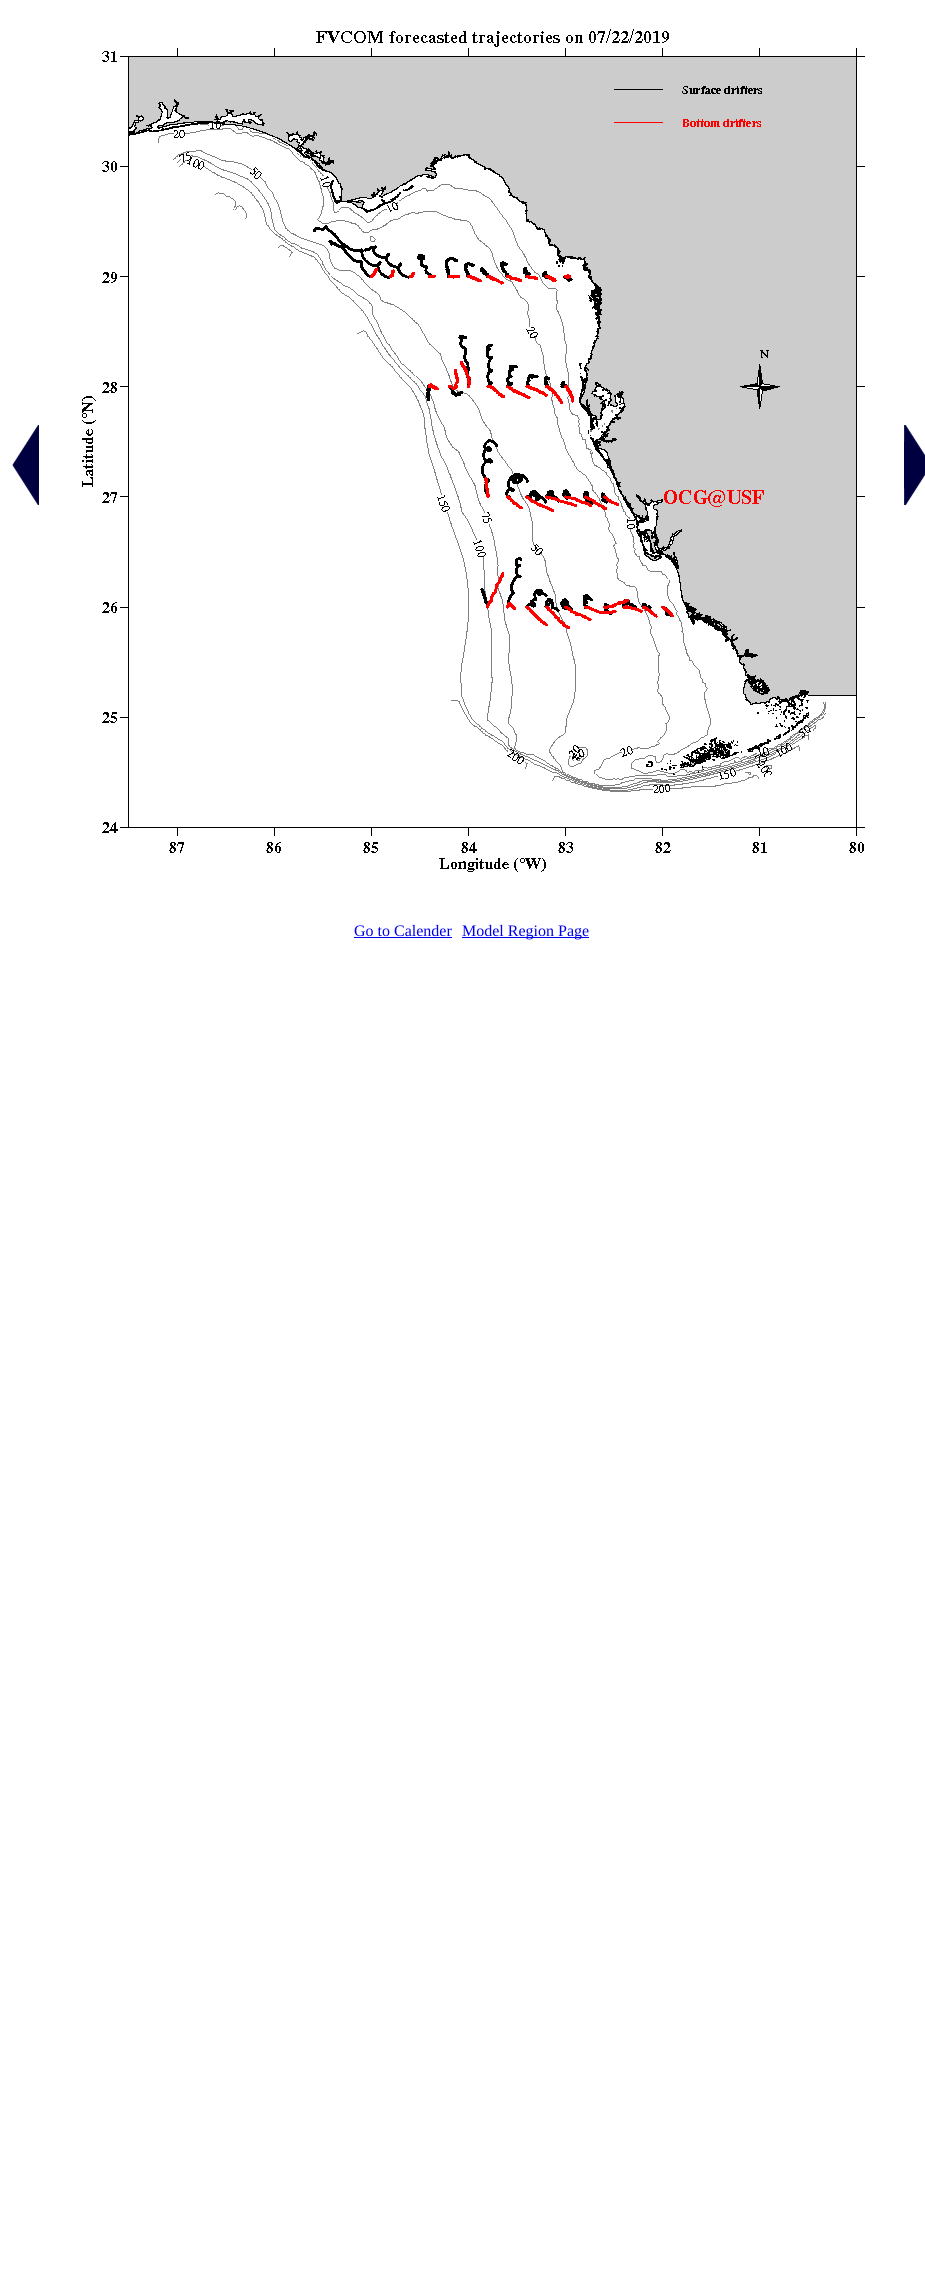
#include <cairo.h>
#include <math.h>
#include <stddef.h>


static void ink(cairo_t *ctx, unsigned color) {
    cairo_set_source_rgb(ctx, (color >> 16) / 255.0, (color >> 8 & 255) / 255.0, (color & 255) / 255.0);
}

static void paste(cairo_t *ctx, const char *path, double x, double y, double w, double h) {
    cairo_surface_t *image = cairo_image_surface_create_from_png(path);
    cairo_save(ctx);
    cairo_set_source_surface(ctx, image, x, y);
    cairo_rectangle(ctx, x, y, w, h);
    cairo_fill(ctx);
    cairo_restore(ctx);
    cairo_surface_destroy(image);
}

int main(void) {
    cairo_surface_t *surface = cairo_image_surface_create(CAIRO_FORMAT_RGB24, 925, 2274);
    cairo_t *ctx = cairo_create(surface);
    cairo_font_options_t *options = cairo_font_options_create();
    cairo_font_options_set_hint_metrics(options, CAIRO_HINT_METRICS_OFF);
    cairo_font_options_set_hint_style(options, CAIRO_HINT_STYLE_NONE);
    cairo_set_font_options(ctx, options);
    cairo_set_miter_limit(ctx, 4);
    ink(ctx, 0xFFFFFF);
    cairo_paint(ctx);
    paste(ctx, "media/1.png", 12, 425, 27, 80);
    paste(ctx, "media/2.png", 82, 29, 783, 843);
    paste(ctx, "media/3.png", 904, 425, 21, 80);
    cairo_select_font_face(ctx, "Liberation Serif", CAIRO_FONT_SLANT_NORMAL, CAIRO_FONT_WEIGHT_NORMAL);
    cairo_set_font_size(ctx, 16);
    ink(ctx, 0x0000EE);
    cairo_move_to(ctx, 354, 936);
    cairo_show_text(ctx, "Go to Calender");
    cairo_rectangle(ctx, 354, 937, 98, 1);
    cairo_fill(ctx);
    cairo_rectangle(ctx, 462, 937, 127, 1);
    cairo_fill(ctx);
    cairo_move_to(ctx, 462, 936);
    cairo_show_text(ctx, "Model Region Page");
    cairo_surface_write_to_png(surface, "image.png");
    cairo_font_options_destroy(options);
    cairo_destroy(ctx);
    cairo_surface_destroy(surface);
    return 0;
}
